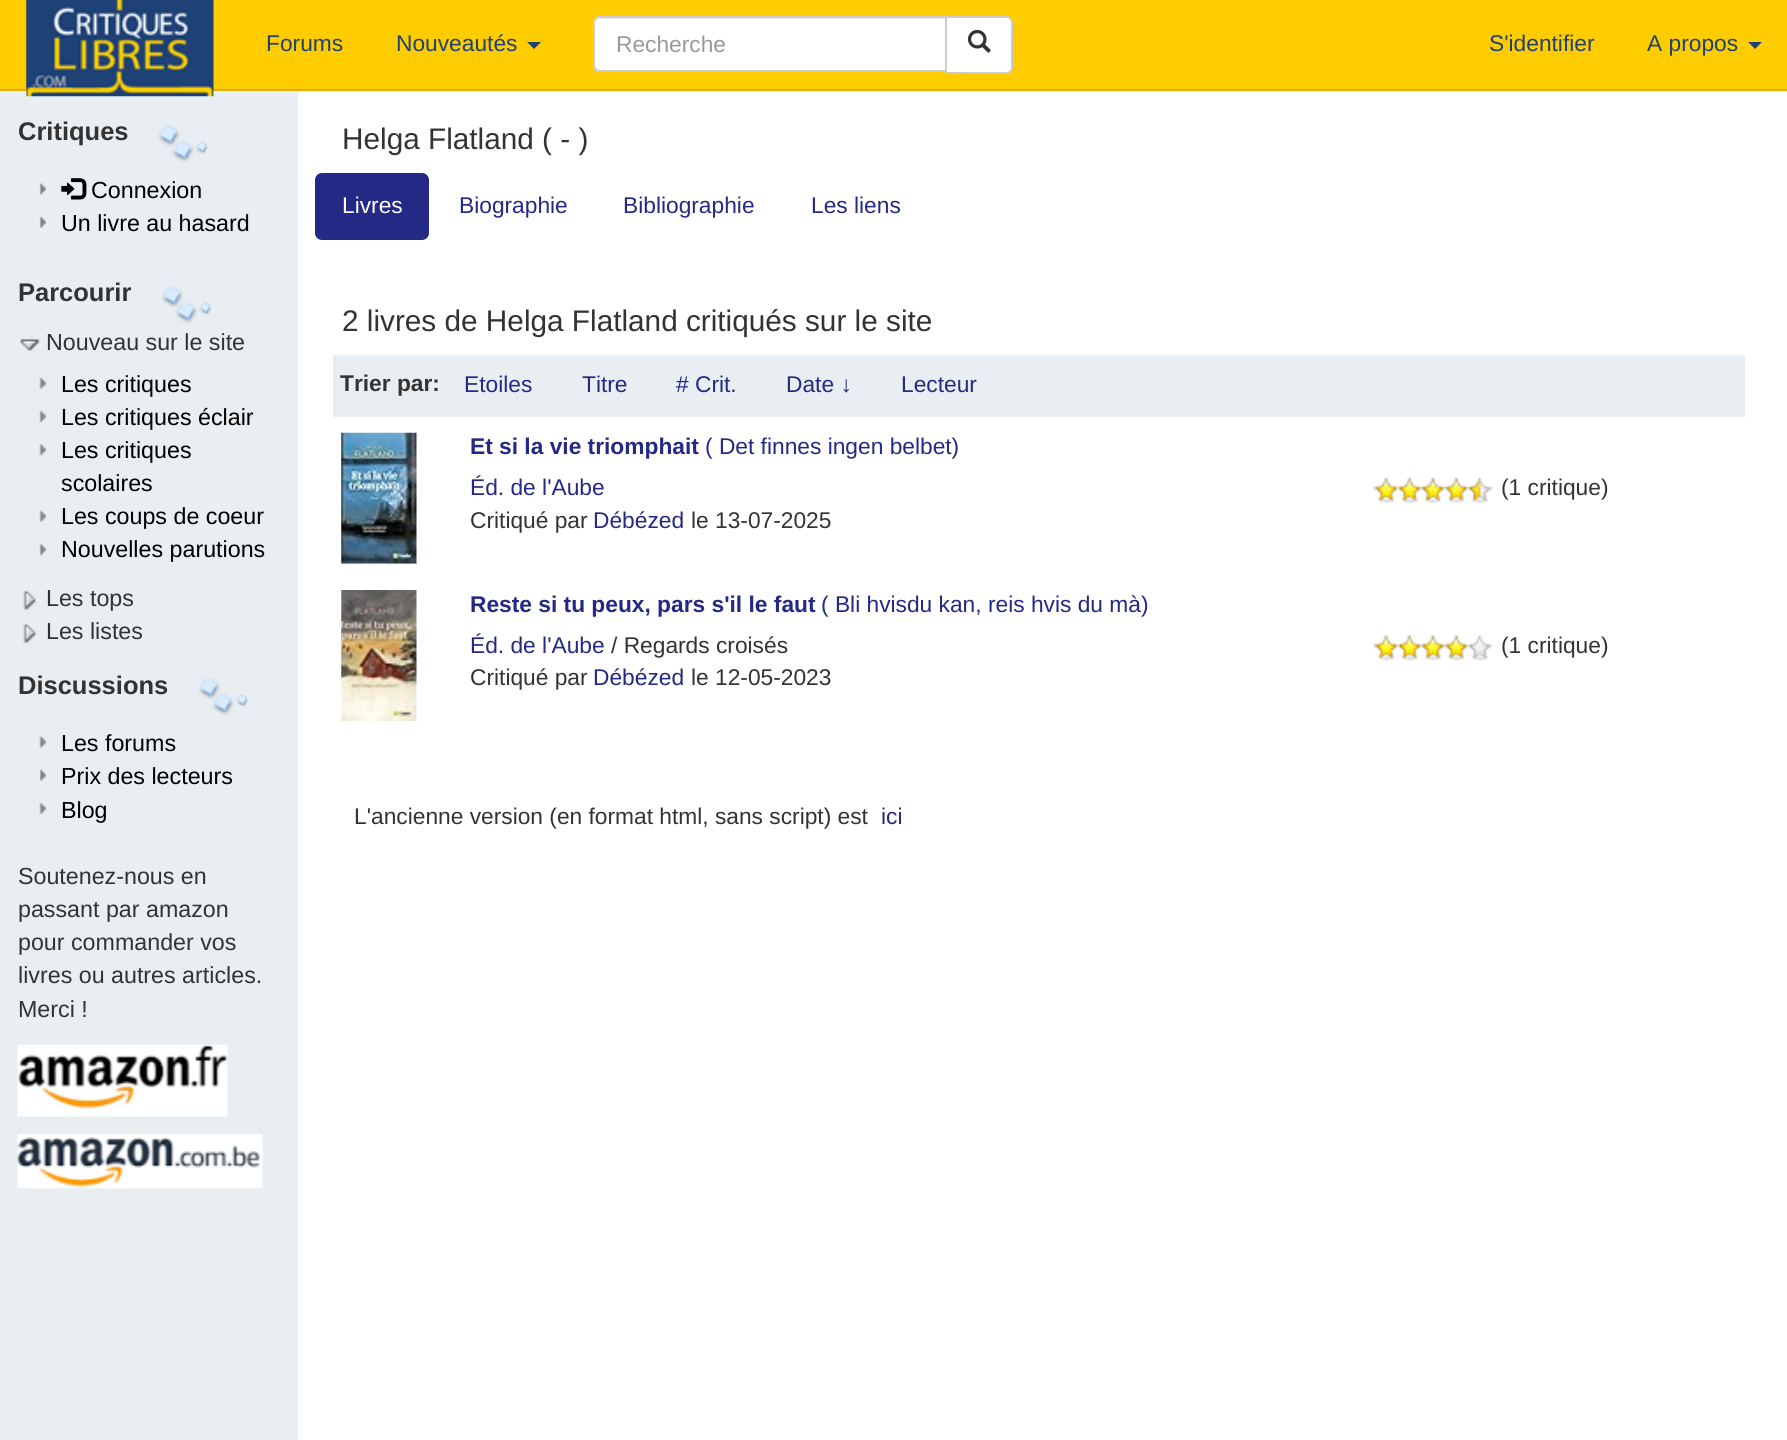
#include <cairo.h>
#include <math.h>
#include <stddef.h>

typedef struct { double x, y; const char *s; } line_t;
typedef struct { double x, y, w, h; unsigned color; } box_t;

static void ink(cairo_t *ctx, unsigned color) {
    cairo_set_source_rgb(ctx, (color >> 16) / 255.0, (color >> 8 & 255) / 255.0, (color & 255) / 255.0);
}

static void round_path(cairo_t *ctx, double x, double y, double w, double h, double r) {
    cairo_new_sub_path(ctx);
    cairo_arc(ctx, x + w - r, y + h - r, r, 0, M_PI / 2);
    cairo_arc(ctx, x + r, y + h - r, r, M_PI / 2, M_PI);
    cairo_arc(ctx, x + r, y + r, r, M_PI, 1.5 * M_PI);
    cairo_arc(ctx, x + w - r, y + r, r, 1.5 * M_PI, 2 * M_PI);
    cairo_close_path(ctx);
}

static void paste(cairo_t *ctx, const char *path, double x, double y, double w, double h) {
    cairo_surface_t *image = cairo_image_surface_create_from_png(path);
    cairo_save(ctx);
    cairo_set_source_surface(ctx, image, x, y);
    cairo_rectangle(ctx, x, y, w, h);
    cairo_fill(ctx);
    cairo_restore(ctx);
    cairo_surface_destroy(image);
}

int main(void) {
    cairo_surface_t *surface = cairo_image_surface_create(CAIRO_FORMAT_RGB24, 1787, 1440);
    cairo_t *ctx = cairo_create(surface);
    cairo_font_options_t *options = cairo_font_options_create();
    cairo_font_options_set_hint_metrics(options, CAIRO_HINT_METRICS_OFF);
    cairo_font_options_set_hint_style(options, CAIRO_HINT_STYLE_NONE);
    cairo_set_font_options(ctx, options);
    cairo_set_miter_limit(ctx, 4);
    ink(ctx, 0xFFFFFF);
    cairo_paint(ctx);
    {
        static const box_t items[] = {
            {0, 0, 1787, 89, 0xFFCC00},
            {0, 89, 1787, 2, 0xDEB100},
            {0, 91, 298, 1349, 0xE8EEF1},
        };
        for (size_t i = 0; i < sizeof items / sizeof *items; i++) {
            ink(ctx, items[i].color);
            cairo_rectangle(ctx, items[i].x, items[i].y, items[i].w, items[i].h);
            cairo_fill(ctx);
        }
    }
    paste(ctx, "media/1.png", 26, 0, 188, 97);
    cairo_select_font_face(ctx, "Liberation Sans", CAIRO_FONT_SLANT_NORMAL, CAIRO_FONT_WEIGHT_NORMAL);
    cairo_set_font_size(ctx, 22.75);
    ink(ctx, 0x1E4176);
    cairo_move_to(ctx, 266, 51);
    cairo_show_text(ctx, "Forums");
    cairo_move_to(ctx, 396, 51);
    cairo_show_text(ctx, "Nouveautés");
    cairo_new_path(ctx);
    cairo_move_to(ctx, 527, 42);
    cairo_line_to(ctx, 541, 42);
    cairo_line_to(ctx, 534, 49);
    cairo_close_path(ctx);
    cairo_fill(ctx);
    ink(ctx, 0xFFFFFF);
    cairo_new_path(ctx);
    cairo_move_to(ctx, 600, 16);
    cairo_line_to(ctx, 947, 16);
    cairo_line_to(ctx, 947, 72);
    cairo_line_to(ctx, 600, 72);
    cairo_curve_to(ctx, 596, 72, 593, 69, 593, 65);
    cairo_line_to(ctx, 593, 23);
    cairo_curve_to(ctx, 593, 19, 596, 16, 600, 16);
    cairo_close_path(ctx);
    cairo_fill(ctx);
    ink(ctx, 0xECECEC);
    cairo_new_path(ctx);
    cairo_move_to(ctx, 600, 19);
    cairo_line_to(ctx, 945, 19);
    cairo_line_to(ctx, 945, 18);
    cairo_line_to(ctx, 600, 18);
    cairo_curve_to(ctx, 597, 18, 595, 20, 595, 23);
    cairo_line_to(ctx, 595, 24);
    cairo_curve_to(ctx, 595, 22, 597, 19, 600, 19);
    cairo_close_path(ctx);
    cairo_fill(ctx);
    cairo_new_path(ctx);
    cairo_move_to(ctx, 600, 17);
    cairo_line_to(ctx, 946, 17);
    cairo_line_to(ctx, 946, 71);
    cairo_line_to(ctx, 600, 71);
    cairo_curve_to(ctx, 596.5, 71, 594, 68.5, 594, 65);
    cairo_line_to(ctx, 594, 23);
    cairo_curve_to(ctx, 594, 19.5, 596.5, 17, 600, 17);
    cairo_close_path(ctx);
    ink(ctx, 0xCCCCCC);
    cairo_stroke(ctx);
    ink(ctx, 0x999999);
    cairo_move_to(ctx, 616, 52);
    cairo_show_text(ctx, "Recherche");
    ink(ctx, 0xFFFFFF);
    cairo_new_path(ctx);
    cairo_move_to(ctx, 946, 17);
    cairo_line_to(ctx, 1006, 17);
    cairo_curve_to(ctx, 1009.5, 17, 1012, 19.5, 1012, 23);
    cairo_line_to(ctx, 1012, 67);
    cairo_curve_to(ctx, 1012, 70.5, 1009.5, 73, 1006, 73);
    cairo_line_to(ctx, 946, 73);
    cairo_close_path(ctx);
    cairo_fill_preserve(ctx);
    ink(ctx, 0xCCCCCC);
    cairo_stroke(ctx);
    paste(ctx, "media/2.png", 967, 29, 24, 24);
    ink(ctx, 0x1E4176);
    cairo_move_to(ctx, 1489, 51);
    cairo_show_text(ctx, "S'identifier");
    cairo_move_to(ctx, 1647, 51);
    cairo_show_text(ctx, "A propos");
    cairo_new_path(ctx);
    cairo_move_to(ctx, 1748, 42);
    cairo_line_to(ctx, 1762, 42);
    cairo_line_to(ctx, 1755, 49);
    cairo_close_path(ctx);
    cairo_fill(ctx);
    cairo_select_font_face(ctx, "Liberation Sans", CAIRO_FONT_SLANT_NORMAL, CAIRO_FONT_WEIGHT_BOLD);
    cairo_set_font_size(ctx, 25.5);
    ink(ctx, 0x333333);
    cairo_move_to(ctx, 18, 140);
    cairo_show_text(ctx, "Critiques");
    paste(ctx, "media/3.png", 158, 124, 50, 39);
    paste(ctx, "media/4.png", 39, 183, 7, 12);
    paste(ctx, "media/5.png", 61, 178, 26, 22);
    cairo_select_font_face(ctx, "Liberation Sans", CAIRO_FONT_SLANT_NORMAL, CAIRO_FONT_WEIGHT_NORMAL);
    cairo_set_font_size(ctx, 23.25);
    ink(ctx, 0x000000);
    cairo_move_to(ctx, 91, 198);
    cairo_show_text(ctx, "Connexion");
    paste(ctx, "media/6.png", 39, 216, 7, 12);
    cairo_move_to(ctx, 61, 231);
    cairo_show_text(ctx, "Un livre au hasard");
    cairo_select_font_face(ctx, "Liberation Sans", CAIRO_FONT_SLANT_NORMAL, CAIRO_FONT_WEIGHT_BOLD);
    cairo_set_font_size(ctx, 25.5);
    ink(ctx, 0x333333);
    cairo_move_to(ctx, 18, 301);
    cairo_show_text(ctx, "Parcourir");
    paste(ctx, "media/7.png", 162, 285, 50, 39);
    paste(ctx, "media/8.png", 19, 338, 22, 14);
    cairo_select_font_face(ctx, "Liberation Sans", CAIRO_FONT_SLANT_NORMAL, CAIRO_FONT_WEIGHT_NORMAL);
    cairo_set_font_size(ctx, 23.25);
    cairo_move_to(ctx, 46, 350);
    cairo_show_text(ctx, "Nouveau sur le site");
    paste(ctx, "media/9.png", 39, 377, 8, 12);
    ink(ctx, 0x000000);
    cairo_move_to(ctx, 61, 392);
    cairo_show_text(ctx, "Les critiques");
    paste(ctx, "media/10.png", 39, 410, 8, 13);
    cairo_move_to(ctx, 61, 425);
    cairo_show_text(ctx, "Les critiques éclair");
    paste(ctx, "media/11.png", 39, 444, 8, 12);
    cairo_move_to(ctx, 61, 458);
    cairo_show_text(ctx, "Les critiques");
    cairo_move_to(ctx, 61, 491);
    cairo_show_text(ctx, "scolaires");
    paste(ctx, "media/12.png", 39, 510, 8, 12);
    cairo_move_to(ctx, 61, 524);
    cairo_show_text(ctx, "Les coups de coeur");
    paste(ctx, "media/10.png", 39, 543, 8, 13);
    cairo_move_to(ctx, 61, 557);
    cairo_show_text(ctx, "Nouvelles parutions");
    paste(ctx, "media/13.png", 22, 590, 15, 21);
    ink(ctx, 0x333333);
    cairo_move_to(ctx, 46, 606);
    cairo_show_text(ctx, "Les tops");
    paste(ctx, "media/14.png", 22, 623, 15, 21);
    cairo_move_to(ctx, 46, 639);
    cairo_show_text(ctx, "Les listes");
    cairo_select_font_face(ctx, "Liberation Sans", CAIRO_FONT_SLANT_NORMAL, CAIRO_FONT_WEIGHT_BOLD);
    cairo_set_font_size(ctx, 25.5);
    cairo_move_to(ctx, 18, 694);
    cairo_show_text(ctx, "Discussions");
    paste(ctx, "media/15.png", 198, 677, 51, 39);
    paste(ctx, "media/16.png", 39, 736, 8, 12);
    cairo_select_font_face(ctx, "Liberation Sans", CAIRO_FONT_SLANT_NORMAL, CAIRO_FONT_WEIGHT_NORMAL);
    cairo_set_font_size(ctx, 23.25);
    ink(ctx, 0x000000);
    cairo_move_to(ctx, 61, 751);
    cairo_show_text(ctx, "Les forums");
    paste(ctx, "media/17.png", 39, 769, 7, 12);
    cairo_move_to(ctx, 61, 784);
    cairo_show_text(ctx, "Prix des lecteurs");
    paste(ctx, "media/18.png", 39, 802, 8, 13);
    cairo_move_to(ctx, 61, 818);
    cairo_show_text(ctx, "Blog");
    ink(ctx, 0x333333);
    {
        static const line_t items[] = {
            {18, 884, "Soutenez-nous en"},
            {18, 917, "passant par amazon"},
            {18, 950, "pour commander vos"},
            {18, 983, "livres ou autres articles."},
            {18, 1017, "Merci !"},
        };
        for (size_t i = 0; i < sizeof items / sizeof *items; i++) {
            cairo_move_to(ctx, items[i].x, items[i].y);
            cairo_show_text(ctx, items[i].s);
        }
    }
    paste(ctx, "media/19.png", 17, 1044, 211, 73);
    paste(ctx, "media/20.png", 17, 1134, 246, 55);
    cairo_set_font_size(ctx, 29.75);
    cairo_move_to(ctx, 342, 149);
    cairo_show_text(ctx, "Helga Flatland ( - )");
    ink(ctx, 0x232984);
    round_path(ctx, 315, 173, 114, 67, 7);
    cairo_fill(ctx);
    cairo_set_font_size(ctx, 22.75);
    ink(ctx, 0xFFFFFF);
    cairo_move_to(ctx, 342, 213);
    cairo_show_text(ctx, "Livres");
    ink(ctx, 0x232984);
    {
        static const line_t items[] = {
            {459, 213, "Biographie"},
            {623, 213, "Bibliographie"},
            {811, 213, "Les liens"},
        };
        for (size_t i = 0; i < sizeof items / sizeof *items; i++) {
            cairo_move_to(ctx, items[i].x, items[i].y);
            cairo_show_text(ctx, items[i].s);
        }
    }
    cairo_set_font_size(ctx, 29.75);
    ink(ctx, 0x333333);
    cairo_move_to(ctx, 342, 331);
    cairo_show_text(ctx, "2 livres de Helga Flatland critiqués sur le site");
    ink(ctx, 0xE8EEF1);
    cairo_rectangle(ctx, 333, 355, 1412, 62);
    cairo_fill(ctx);
    cairo_select_font_face(ctx, "Liberation Sans", CAIRO_FONT_SLANT_NORMAL, CAIRO_FONT_WEIGHT_BOLD);
    cairo_set_font_size(ctx, 22.75);
    ink(ctx, 0x333333);
    cairo_move_to(ctx, 340, 391);
    cairo_show_text(ctx, "Trier par:");
    cairo_select_font_face(ctx, "Liberation Sans", CAIRO_FONT_SLANT_NORMAL, CAIRO_FONT_WEIGHT_NORMAL);
    ink(ctx, 0x232984);
    {
        static const line_t items[] = {
            {464, 392, "Etoiles"},
            {582, 392, "Titre"},
            {676, 392, "# Crit."},
            {786, 392, "Date ↓"},
            {901, 392, "Lecteur"},
        };
        for (size_t i = 0; i < sizeof items / sizeof *items; i++) {
            cairo_move_to(ctx, items[i].x, items[i].y);
            cairo_show_text(ctx, items[i].s);
        }
    }
    paste(ctx, "media/21.png", 341, 432, 76, 132);
    cairo_select_font_face(ctx, "Liberation Sans", CAIRO_FONT_SLANT_NORMAL, CAIRO_FONT_WEIGHT_BOLD);
    cairo_move_to(ctx, 470, 454);
    cairo_show_text(ctx, "Et si la vie triomphait");
    cairo_select_font_face(ctx, "Liberation Sans", CAIRO_FONT_SLANT_NORMAL, CAIRO_FONT_WEIGHT_NORMAL);
    cairo_move_to(ctx, 705, 454);
    cairo_show_text(ctx, "( Det finnes ingen belbet)");
    cairo_move_to(ctx, 470, 495);
    cairo_show_text(ctx, "Éd. de l'Aube");
    ink(ctx, 0x333333);
    cairo_move_to(ctx, 470, 528);
    cairo_show_text(ctx, "Critiqué par");
    ink(ctx, 0x232984);
    cairo_move_to(ctx, 593, 528);
    cairo_show_text(ctx, "Débézed");
    ink(ctx, 0x333333);
    cairo_move_to(ctx, 691, 528);
    cairo_show_text(ctx, "le 13-07-2025");
    paste(ctx, "media/22.png", 1373, 477, 120, 26);
    cairo_move_to(ctx, 1501, 495);
    cairo_show_text(ctx, "(1 critique)");
    paste(ctx, "media/23.png", 341, 590, 76, 131);
    cairo_select_font_face(ctx, "Liberation Sans", CAIRO_FONT_SLANT_NORMAL, CAIRO_FONT_WEIGHT_BOLD);
    ink(ctx, 0x232984);
    cairo_move_to(ctx, 470, 612);
    cairo_show_text(ctx, "Reste si tu peux, pars s'il le faut");
    cairo_select_font_face(ctx, "Liberation Sans", CAIRO_FONT_SLANT_NORMAL, CAIRO_FONT_WEIGHT_NORMAL);
    cairo_move_to(ctx, 821, 612);
    cairo_show_text(ctx, "( Bli hvisdu kan, reis hvis du mà)");
    cairo_move_to(ctx, 470, 653);
    cairo_show_text(ctx, "Éd. de l'Aube");
    ink(ctx, 0x333333);
    cairo_move_to(ctx, 611, 653);
    cairo_show_text(ctx, "/ Regards croisés");
    cairo_move_to(ctx, 470, 685);
    cairo_show_text(ctx, "Critiqué par");
    ink(ctx, 0x232984);
    cairo_move_to(ctx, 593, 685);
    cairo_show_text(ctx, "Débézed");
    ink(ctx, 0x333333);
    cairo_move_to(ctx, 691, 685);
    cairo_show_text(ctx, "le 12-05-2023");
    paste(ctx, "media/24.png", 1373, 635, 120, 26);
    cairo_move_to(ctx, 1501, 653);
    cairo_show_text(ctx, "(1 critique)");
    cairo_move_to(ctx, 354, 824);
    cairo_show_text(ctx, "L'ancienne version (en format html, sans script) est");
    ink(ctx, 0x232984);
    cairo_move_to(ctx, 881, 824);
    cairo_show_text(ctx, "ici");
    cairo_surface_write_to_png(surface, "image.png");
    cairo_font_options_destroy(options);
    cairo_destroy(ctx);
    cairo_surface_destroy(surface);
    return 0;
}
